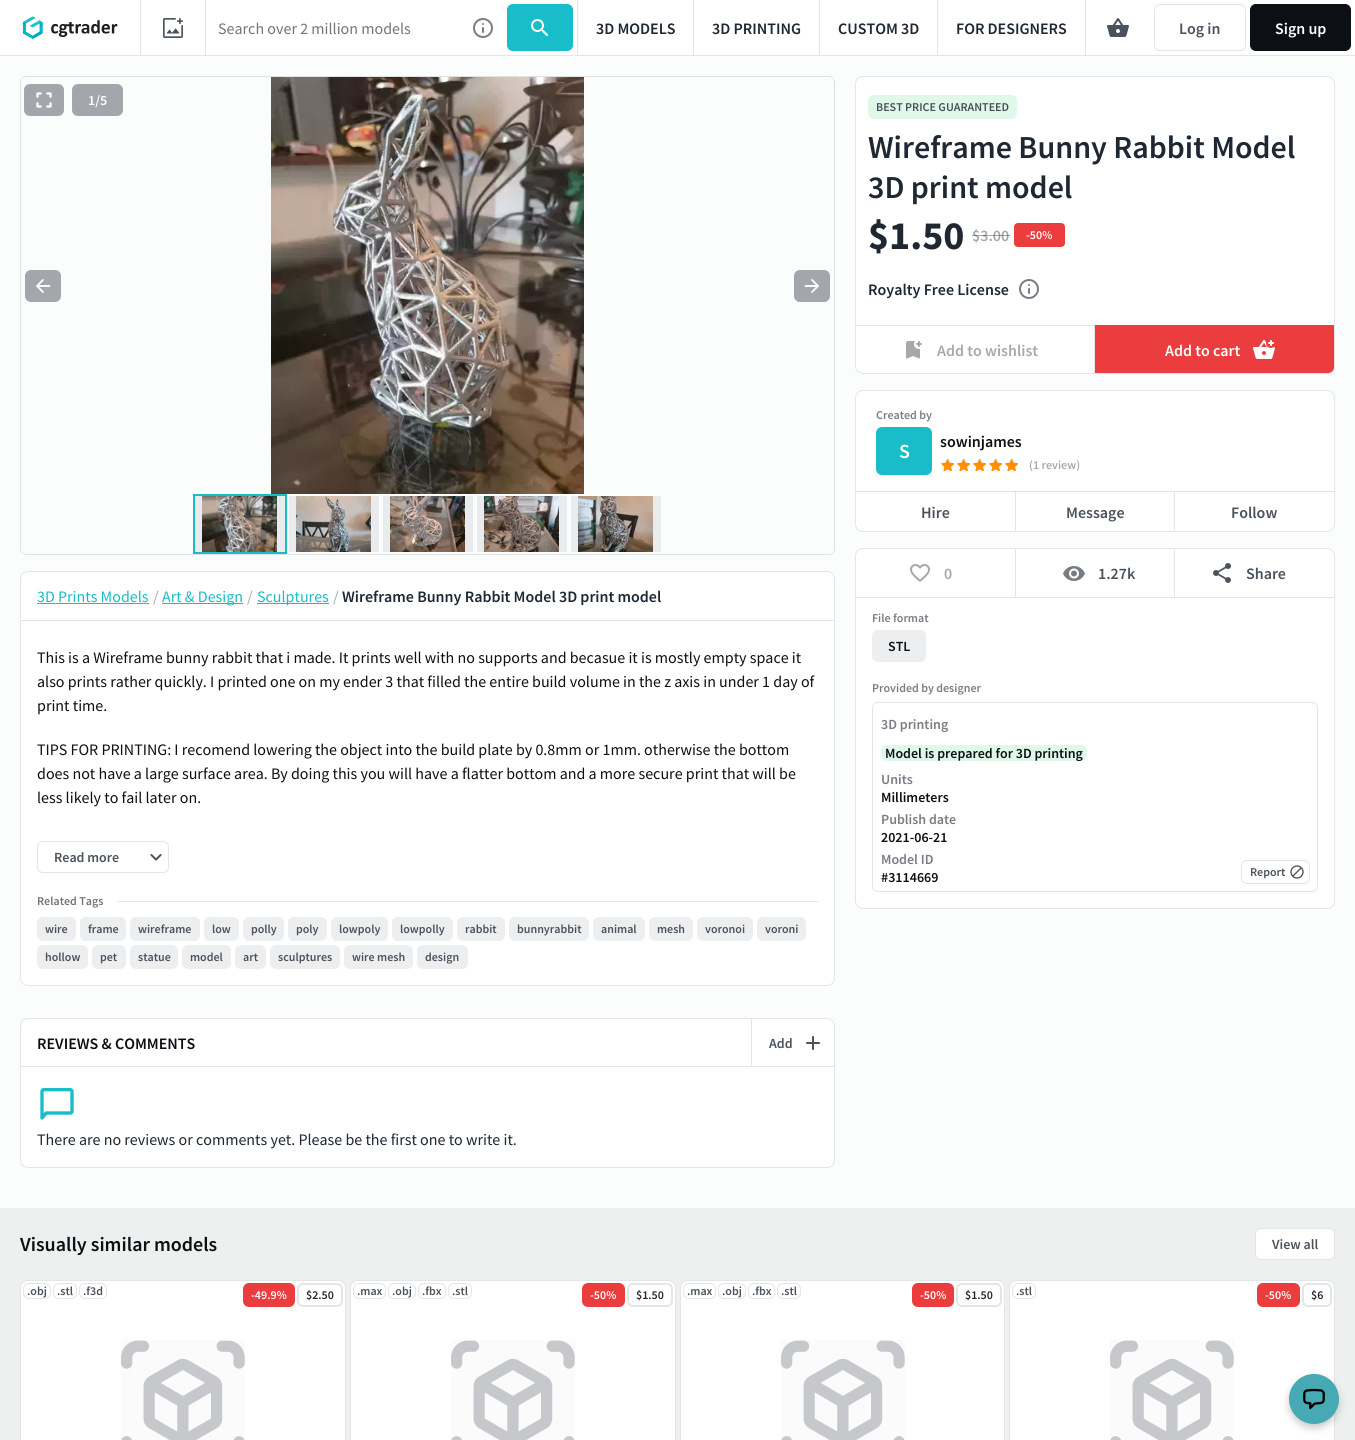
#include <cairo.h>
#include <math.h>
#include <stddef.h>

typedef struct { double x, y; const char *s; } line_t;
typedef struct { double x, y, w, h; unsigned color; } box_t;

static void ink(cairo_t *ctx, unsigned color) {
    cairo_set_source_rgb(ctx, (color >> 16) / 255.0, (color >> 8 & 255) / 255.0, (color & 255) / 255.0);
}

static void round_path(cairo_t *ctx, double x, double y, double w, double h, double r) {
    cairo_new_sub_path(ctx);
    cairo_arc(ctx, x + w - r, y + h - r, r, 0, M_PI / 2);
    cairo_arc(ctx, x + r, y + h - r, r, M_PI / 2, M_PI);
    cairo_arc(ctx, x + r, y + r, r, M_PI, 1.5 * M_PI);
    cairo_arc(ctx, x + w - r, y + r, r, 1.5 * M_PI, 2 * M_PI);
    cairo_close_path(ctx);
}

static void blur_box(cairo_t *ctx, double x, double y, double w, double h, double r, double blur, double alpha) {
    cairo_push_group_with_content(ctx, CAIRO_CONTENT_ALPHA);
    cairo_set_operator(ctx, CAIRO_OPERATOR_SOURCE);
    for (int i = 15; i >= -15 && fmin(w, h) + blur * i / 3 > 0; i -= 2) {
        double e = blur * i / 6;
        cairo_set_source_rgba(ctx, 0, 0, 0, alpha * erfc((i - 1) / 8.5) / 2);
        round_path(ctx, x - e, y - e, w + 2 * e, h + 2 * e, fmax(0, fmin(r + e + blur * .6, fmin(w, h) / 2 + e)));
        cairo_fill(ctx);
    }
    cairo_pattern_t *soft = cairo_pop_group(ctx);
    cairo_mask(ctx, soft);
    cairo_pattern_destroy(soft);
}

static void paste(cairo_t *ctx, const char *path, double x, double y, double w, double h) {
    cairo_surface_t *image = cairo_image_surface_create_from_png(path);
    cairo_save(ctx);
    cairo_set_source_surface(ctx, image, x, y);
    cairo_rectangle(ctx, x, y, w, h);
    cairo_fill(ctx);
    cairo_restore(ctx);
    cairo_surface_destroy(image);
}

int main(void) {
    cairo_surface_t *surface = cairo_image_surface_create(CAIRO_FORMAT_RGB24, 1355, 1440);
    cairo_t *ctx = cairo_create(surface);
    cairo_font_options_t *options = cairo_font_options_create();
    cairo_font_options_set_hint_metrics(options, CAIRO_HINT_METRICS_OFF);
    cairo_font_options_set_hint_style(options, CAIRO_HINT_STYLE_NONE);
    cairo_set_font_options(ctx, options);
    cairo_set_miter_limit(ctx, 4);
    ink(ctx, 0xFBFCFC);
    cairo_paint(ctx);
    ink(ctx, 0xFFFFFF);
    cairo_rectangle(ctx, 0, 0, 1355, 55);
    cairo_fill(ctx);
    ink(ctx, 0xE4E5E6);
    cairo_rectangle(ctx, 0, 55, 1355, 1);
    cairo_fill(ctx);
    paste(ctx, "media/1.png", 22, 16, 96, 23);
    {
        static const box_t items[] = {
            {577, 0, 1, 55, 0xE4E5E6},
            {140, 0, 1, 55, 0xE4E5E6},
            {205, 0, 1, 55, 0xE4E5E6},
        };
        for (size_t i = 0; i < sizeof items / sizeof *items; i++) {
            ink(ctx, items[i].color);
            cairo_rectangle(ctx, items[i].x, items[i].y, items[i].w, items[i].h);
            cairo_fill(ctx);
        }
    }
    paste(ctx, "media/2.png", 163, 18, 20, 20);
    cairo_select_font_face(ctx, "Source Sans Pro", CAIRO_FONT_SLANT_NORMAL, CAIRO_FONT_WEIGHT_NORMAL);
    cairo_set_font_size(ctx, 16);
    ink(ctx, 0x757575);
    cairo_move_to(ctx, 218, 34);
    cairo_show_text(ctx, "Search over 2 million models");
    paste(ctx, "media/3.png", 473, 18, 20, 20);
    ink(ctx, 0x19BCC9);
    round_path(ctx, 507.5, 4.5, 65, 46, 5.5);
    cairo_fill_preserve(ctx);
    cairo_set_line_width(ctx, 1);
    cairo_stroke(ctx);
    paste(ctx, "media/4.png", 531, 19, 17, 17);
    ink(ctx, 0xE4E5E6);
    cairo_rectangle(ctx, 693, 0, 1, 55);
    cairo_fill(ctx);
    cairo_select_font_face(ctx, "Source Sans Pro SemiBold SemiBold", CAIRO_FONT_SLANT_NORMAL, CAIRO_FONT_WEIGHT_NORMAL);
    ink(ctx, 0x1E2732);
    cairo_move_to(ctx, 596, 34);
    cairo_show_text(ctx, "3D MODELS");
    ink(ctx, 0xE4E5E6);
    cairo_rectangle(ctx, 819, 0, 1, 55);
    cairo_fill(ctx);
    ink(ctx, 0x1E2732);
    cairo_move_to(ctx, 712, 34);
    cairo_show_text(ctx, "3D PRINTING");
    ink(ctx, 0xE4E5E6);
    cairo_rectangle(ctx, 937, 0, 1, 55);
    cairo_fill(ctx);
    ink(ctx, 0x1E2732);
    cairo_move_to(ctx, 838, 34);
    cairo_show_text(ctx, "CUSTOM 3D");
    ink(ctx, 0xE4E5E6);
    cairo_rectangle(ctx, 1085, 0, 1, 55);
    cairo_fill(ctx);
    ink(ctx, 0x1E2732);
    cairo_move_to(ctx, 956, 34);
    cairo_show_text(ctx, "FOR DESIGNERS");
    paste(ctx, "media/5.png", 1107, 18, 22, 19);
    round_path(ctx, 1154.5, 4.5, 91, 46, 5.5);
    ink(ctx, 0xE4E5E6);
    cairo_stroke(ctx);
    ink(ctx, 0x4B525B);
    cairo_move_to(ctx, 1179, 34);
    cairo_show_text(ctx, "Log in");
    ink(ctx, 0x0C1015);
    round_path(ctx, 1250.5, 4.5, 100, 46, 5.5);
    cairo_fill_preserve(ctx);
    cairo_stroke(ctx);
    ink(ctx, 0xFFFFFF);
    cairo_move_to(ctx, 1275, 34);
    cairo_show_text(ctx, "Sign up");
    ink(ctx, 0xE0E2E4);
    cairo_set_fill_rule(ctx, CAIRO_FILL_RULE_EVEN_ODD);
    cairo_new_path(ctx);
    cairo_move_to(ctx, 26, 76);
    cairo_line_to(ctx, 829, 76);
    cairo_curve_to(ctx, 832, 76, 835, 79, 835, 82);
    cairo_line_to(ctx, 835, 494);
    cairo_line_to(ctx, 20, 494);
    cairo_line_to(ctx, 20, 82);
    cairo_curve_to(ctx, 20, 79, 23, 76, 26, 76);
    cairo_close_path(ctx);
    cairo_move_to(ctx, 26, 77);
    cairo_line_to(ctx, 829, 77);
    cairo_curve_to(ctx, 832, 77, 834, 79, 834, 82);
    cairo_line_to(ctx, 834, 494);
    cairo_line_to(ctx, 21, 494);
    cairo_line_to(ctx, 21, 82);
    cairo_curve_to(ctx, 21, 79, 23, 77, 26, 77);
    cairo_close_path(ctx);
    cairo_fill(ctx);
    paste(ctx, "media/6.png", 271, 77, 313, 417);
    ink(ctx, 0xA3A7AB);
    round_path(ctx, 25, 270, 36, 32, 6);
    cairo_fill(ctx);
    paste(ctx, "media/7.png", 36, 279, 15, 14);
    round_path(ctx, 794, 270, 36, 32, 6);
    cairo_fill(ctx);
    paste(ctx, "media/8.png", 804, 279, 15, 14);
    ink(ctx, 0xE0E2E4);
    cairo_new_path(ctx);
    cairo_move_to(ctx, 20, 494);
    cairo_line_to(ctx, 835, 494);
    cairo_line_to(ctx, 835, 549);
    cairo_curve_to(ctx, 835, 552, 832, 555, 829, 555);
    cairo_line_to(ctx, 26, 555);
    cairo_curve_to(ctx, 23, 555, 20, 552, 20, 549);
    cairo_close_path(ctx);
    cairo_move_to(ctx, 21, 494);
    cairo_line_to(ctx, 834, 494);
    cairo_line_to(ctx, 834, 549);
    cairo_curve_to(ctx, 834, 552, 832, 554, 829, 554);
    cairo_line_to(ctx, 26, 554);
    cairo_curve_to(ctx, 23, 554, 21, 552, 21, 549);
    cairo_close_path(ctx);
    cairo_fill(ctx);
    cairo_rectangle(ctx, 194, 495, 92, 58);
    ink(ctx, 0x19BCC9);
    cairo_set_line_width(ctx, 2);
    cairo_stroke(ctx);
    ink(ctx, 0xE9EBEC);
    cairo_rectangle(ctx, 195, 496, 90, 56);
    cairo_fill(ctx);
    paste(ctx, "media/9.png", 202, 496, 75, 56);
    cairo_rectangle(ctx, 289, 496, 90, 56);
    cairo_fill(ctx);
    paste(ctx, "media/10.png", 296, 496, 75, 56);
    cairo_rectangle(ctx, 383, 496, 90, 56);
    cairo_fill(ctx);
    paste(ctx, "media/11.png", 390, 496, 75, 56);
    cairo_rectangle(ctx, 477, 496, 90, 56);
    cairo_fill(ctx);
    paste(ctx, "media/12.png", 484, 496, 75, 56);
    cairo_rectangle(ctx, 571, 496, 90, 56);
    cairo_fill(ctx);
    paste(ctx, "media/13.png", 578, 496, 75, 56);
    ink(ctx, 0xA3A7AB);
    round_path(ctx, 24, 84, 40, 32, 6);
    cairo_fill(ctx);
    paste(ctx, "media/14.png", 36, 92, 16, 16);
    round_path(ctx, 72, 84, 51, 32, 6);
    cairo_fill(ctx);
    cairo_set_font_size(ctx, 14);
    ink(ctx, 0xFFFFFF);
    cairo_move_to(ctx, 88, 105);
    cairo_show_text(ctx, "1/5");
    round_path(ctx, 20.5, 571.5, 814, 414, 7.5);
    cairo_fill_preserve(ctx);
    ink(ctx, 0xE4E5E6);
    cairo_set_line_width(ctx, 1);
    cairo_stroke(ctx);
    cairo_rectangle(ctx, 21, 620, 813, 1);
    cairo_fill(ctx);
    cairo_select_font_face(ctx, "Source Sans Pro", CAIRO_FONT_SLANT_NORMAL, CAIRO_FONT_WEIGHT_NORMAL);
    cairo_set_font_size(ctx, 16);
    ink(ctx, 0x19BCC9);
    cairo_move_to(ctx, 37, 602);
    cairo_show_text(ctx, "3D Prints Models");
    cairo_rectangle(ctx, 37, 603, 112, 1);
    cairo_fill(ctx);
    ink(ctx, 0xA5A9AD);
    cairo_move_to(ctx, 153, 602);
    cairo_show_text(ctx, "/");
    ink(ctx, 0x19BCC9);
    cairo_rectangle(ctx, 162, 603, 81, 1);
    cairo_fill(ctx);
    cairo_move_to(ctx, 162, 602);
    cairo_show_text(ctx, "Art & Design");
    ink(ctx, 0xA5A9AD);
    cairo_move_to(ctx, 247, 602);
    cairo_show_text(ctx, "/");
    ink(ctx, 0x19BCC9);
    cairo_rectangle(ctx, 257, 603, 72, 1);
    cairo_fill(ctx);
    cairo_move_to(ctx, 257, 602);
    cairo_show_text(ctx, "Sculptures");
    ink(ctx, 0xA5A9AD);
    cairo_move_to(ctx, 333, 602);
    cairo_show_text(ctx, "/");
    cairo_select_font_face(ctx, "Source Sans Pro SemiBold SemiBold", CAIRO_FONT_SLANT_NORMAL, CAIRO_FONT_WEIGHT_NORMAL);
    ink(ctx, 0x1E2732);
    cairo_move_to(ctx, 342, 602);
    cairo_show_text(ctx, "Wireframe Bunny Rabbit Model 3D print model");
    cairo_select_font_face(ctx, "Source Sans Pro", CAIRO_FONT_SLANT_NORMAL, CAIRO_FONT_WEIGHT_NORMAL);
    ink(ctx, 0x0C1015);
    {
        static const line_t items[] = {
            {37, 663, "This is a Wireframe bunny rabbit that i made. It prints well with no supports and becasue it is mostly empty space it"},
            {37, 687, "also prints rather quickly. I printed one on my ender 3 that filled the entire build volume in the z axis in under 1 day of"},
            {37, 711, "print time."},
            {37, 755, "TIPS FOR PRINTING: I recomend lowering the object into the build plate by 0.8mm or 1mm. otherwise the bottom"},
            {37, 779, "does not have a large surface area. By doing this you will have a flatter bottom and a more secure print that will be"},
            {37, 803, "less likely to fail later on."},
        };
        for (size_t i = 0; i < sizeof items / sizeof *items; i++) {
            cairo_move_to(ctx, items[i].x, items[i].y);
            cairo_show_text(ctx, items[i].s);
        }
    }
    round_path(ctx, 37.5, 841.5, 131, 31, 5.5);
    ink(ctx, 0xE4E5E6);
    cairo_stroke(ctx);
    cairo_select_font_face(ctx, "Source Sans Pro SemiBold SemiBold", CAIRO_FONT_SLANT_NORMAL, CAIRO_FONT_WEIGHT_NORMAL);
    cairo_set_font_size(ctx, 14);
    ink(ctx, 0x4B525B);
    cairo_move_to(ctx, 54, 862);
    cairo_show_text(ctx, "Read more");
    paste(ctx, "media/15.png", 150, 854, 12, 7);
    cairo_set_font_size(ctx, 12);
    ink(ctx, 0x6F757C);
    cairo_move_to(ctx, 37, 905);
    cairo_show_text(ctx, "Related Tags");
    ink(ctx, 0xE4E5E6);
    cairo_rectangle(ctx, 118, 901, 700, 1);
    cairo_fill(ctx);
    ink(ctx, 0xEDEEEF);
    round_path(ctx, 37, 917, 39, 24, 6);
    cairo_fill(ctx);
    ink(ctx, 0x4B525B);
    cairo_move_to(ctx, 45, 933);
    cairo_show_text(ctx, "wire");
    ink(ctx, 0xEDEEEF);
    round_path(ctx, 80, 917, 46, 24, 6);
    cairo_fill(ctx);
    ink(ctx, 0x4B525B);
    cairo_move_to(ctx, 88, 933);
    cairo_show_text(ctx, "frame");
    ink(ctx, 0xEDEEEF);
    round_path(ctx, 130, 917, 70, 24, 6);
    cairo_fill(ctx);
    ink(ctx, 0x4B525B);
    cairo_move_to(ctx, 138, 933);
    cairo_show_text(ctx, "wireframe");
    ink(ctx, 0xEDEEEF);
    round_path(ctx, 204, 917, 35, 24, 6);
    cairo_fill(ctx);
    ink(ctx, 0x4B525B);
    cairo_move_to(ctx, 212, 933);
    cairo_show_text(ctx, "low");
    ink(ctx, 0xEDEEEF);
    round_path(ctx, 243, 917, 41, 24, 6);
    cairo_fill(ctx);
    ink(ctx, 0x4B525B);
    cairo_move_to(ctx, 251, 933);
    cairo_show_text(ctx, "polly");
    ink(ctx, 0xEDEEEF);
    round_path(ctx, 288, 917, 39, 24, 6);
    cairo_fill(ctx);
    ink(ctx, 0x4B525B);
    cairo_move_to(ctx, 296, 933);
    cairo_show_text(ctx, "poly");
    ink(ctx, 0xEDEEEF);
    round_path(ctx, 331, 917, 57, 24, 6);
    cairo_fill(ctx);
    ink(ctx, 0x4B525B);
    cairo_move_to(ctx, 339, 933);
    cairo_show_text(ctx, "lowpoly");
    ink(ctx, 0xEDEEEF);
    round_path(ctx, 392, 917, 61, 24, 6);
    cairo_fill(ctx);
    ink(ctx, 0x4B525B);
    cairo_move_to(ctx, 400, 933);
    cairo_show_text(ctx, "lowpolly");
    ink(ctx, 0xEDEEEF);
    round_path(ctx, 457, 917, 48, 24, 6);
    cairo_fill(ctx);
    ink(ctx, 0x4B525B);
    cairo_move_to(ctx, 465, 933);
    cairo_show_text(ctx, "rabbit");
    ink(ctx, 0xEDEEEF);
    round_path(ctx, 509, 917, 80, 24, 6);
    cairo_fill(ctx);
    ink(ctx, 0x4B525B);
    cairo_move_to(ctx, 517, 933);
    cairo_show_text(ctx, "bunnyrabbit");
    ink(ctx, 0xEDEEEF);
    round_path(ctx, 593, 917, 52, 24, 6);
    cairo_fill(ctx);
    ink(ctx, 0x4B525B);
    cairo_move_to(ctx, 601, 933);
    cairo_show_text(ctx, "animal");
    ink(ctx, 0xEDEEEF);
    round_path(ctx, 649, 917, 44, 24, 6);
    cairo_fill(ctx);
    ink(ctx, 0x4B525B);
    cairo_move_to(ctx, 657, 933);
    cairo_show_text(ctx, "mesh");
    ink(ctx, 0xEDEEEF);
    round_path(ctx, 697, 917, 56, 24, 6);
    cairo_fill(ctx);
    ink(ctx, 0x4B525B);
    cairo_move_to(ctx, 705, 933);
    cairo_show_text(ctx, "voronoi");
    ink(ctx, 0xEDEEEF);
    round_path(ctx, 757, 917, 49, 24, 6);
    cairo_fill(ctx);
    ink(ctx, 0x4B525B);
    cairo_move_to(ctx, 765, 933);
    cairo_show_text(ctx, "voroni");
    ink(ctx, 0xEDEEEF);
    round_path(ctx, 37, 945, 51, 24, 6);
    cairo_fill(ctx);
    ink(ctx, 0x4B525B);
    cairo_move_to(ctx, 45, 961);
    cairo_show_text(ctx, "hollow");
    ink(ctx, 0xEDEEEF);
    round_path(ctx, 92, 945, 34, 24, 6);
    cairo_fill(ctx);
    ink(ctx, 0x4B525B);
    cairo_move_to(ctx, 100, 961);
    cairo_show_text(ctx, "pet");
    ink(ctx, 0xEDEEEF);
    round_path(ctx, 130, 945, 48, 24, 6);
    cairo_fill(ctx);
    ink(ctx, 0x4B525B);
    cairo_move_to(ctx, 138, 961);
    cairo_show_text(ctx, "statue");
    ink(ctx, 0xEDEEEF);
    round_path(ctx, 182, 945, 49, 24, 6);
    cairo_fill(ctx);
    ink(ctx, 0x4B525B);
    cairo_move_to(ctx, 190, 961);
    cairo_show_text(ctx, "model");
    ink(ctx, 0xEDEEEF);
    round_path(ctx, 235, 945, 31, 24, 6);
    cairo_fill(ctx);
    ink(ctx, 0x4B525B);
    cairo_move_to(ctx, 243, 961);
    cairo_show_text(ctx, "art");
    ink(ctx, 0xEDEEEF);
    round_path(ctx, 270, 945, 70, 24, 6);
    cairo_fill(ctx);
    ink(ctx, 0x4B525B);
    cairo_move_to(ctx, 278, 961);
    cairo_show_text(ctx, "sculptures");
    ink(ctx, 0xEDEEEF);
    round_path(ctx, 344, 945, 69, 24, 6);
    cairo_fill(ctx);
    ink(ctx, 0x4B525B);
    cairo_move_to(ctx, 352, 961);
    cairo_show_text(ctx, "wire mesh");
    ink(ctx, 0xEDEEEF);
    round_path(ctx, 417, 945, 51, 24, 6);
    cairo_fill(ctx);
    ink(ctx, 0x4B525B);
    cairo_move_to(ctx, 425, 961);
    cairo_show_text(ctx, "design");
    ink(ctx, 0xFFFFFF);
    round_path(ctx, 20.5, 1018.5, 814, 149, 7.5);
    cairo_fill_preserve(ctx);
    ink(ctx, 0xE4E5E6);
    cairo_stroke(ctx);
    cairo_rectangle(ctx, 21, 1066, 813, 1);
    cairo_fill(ctx);
    cairo_set_font_size(ctx, 16);
    ink(ctx, 0x0C1015);
    cairo_move_to(ctx, 37, 1049);
    cairo_show_text(ctx, "REVIEWS & COMMENTS");
    ink(ctx, 0xE4E5E6);
    cairo_rectangle(ctx, 751, 1019, 1, 47);
    cairo_fill(ctx);
    cairo_set_font_size(ctx, 14);
    ink(ctx, 0x4B525B);
    cairo_move_to(ctx, 769, 1048);
    cairo_show_text(ctx, "Add");
    paste(ctx, "media/16.png", 806, 1036, 14, 14);
    paste(ctx, "media/17.png", 40, 1088, 34, 32);
    cairo_select_font_face(ctx, "Source Sans Pro", CAIRO_FONT_SLANT_NORMAL, CAIRO_FONT_WEIGHT_NORMAL);
    cairo_set_font_size(ctx, 16);
    ink(ctx, 0x1E2732);
    cairo_move_to(ctx, 37, 1145);
    cairo_show_text(ctx, "There are no reviews or comments yet. Please be the first one to write it.");
    ink(ctx, 0xFFFFFF);
    round_path(ctx, 855, 76, 480, 298, 8);
    cairo_fill(ctx);
    ink(ctx, 0xE4E5E6);
    cairo_rectangle(ctx, 1094, 325, 1, 48);
    cairo_fill(ctx);
    round_path(ctx, 855.5, 76.5, 479, 297, 7.5);
    cairo_stroke(ctx);
    ink(ctx, 0xE0F8EA);
    round_path(ctx, 868, 95, 149, 24, 6);
    cairo_fill(ctx);
    cairo_select_font_face(ctx, "Source Sans Pro SemiBold SemiBold", CAIRO_FONT_SLANT_NORMAL, CAIRO_FONT_WEIGHT_NORMAL);
    cairo_set_font_size(ctx, 12);
    ink(ctx, 0x455157);
    cairo_move_to(ctx, 876, 111);
    cairo_show_text(ctx, "BEST PRICE GUARANTEED");
    cairo_set_font_size(ctx, 32);
    ink(ctx, 0x1E2732);
    cairo_move_to(ctx, 868, 158);
    cairo_show_text(ctx, "Wireframe Bunny Rabbit Model");
    cairo_move_to(ctx, 868, 198);
    cairo_show_text(ctx, "3D print model");
    cairo_select_font_face(ctx, "Source Sans Pro", CAIRO_FONT_SLANT_NORMAL, CAIRO_FONT_WEIGHT_BOLD);
    cairo_set_font_size(ctx, 40);
    cairo_move_to(ctx, 868, 249);
    cairo_show_text(ctx, "$1.50");
    cairo_select_font_face(ctx, "Source Sans Pro SemiBold SemiBold", CAIRO_FONT_SLANT_NORMAL, CAIRO_FONT_WEIGHT_NORMAL);
    cairo_set_font_size(ctx, 16);
    ink(ctx, 0xA5A9AD);
    cairo_move_to(ctx, 972, 241);
    cairo_show_text(ctx, "$3.00");
    cairo_set_source_rgba(ctx, 0.118, 0.153, 0.196, 0.4);
    cairo_rectangle(ctx, 972, 235, 38, 1);
    cairo_fill(ctx);
    ink(ctx, 0xEB3D3D);
    round_path(ctx, 1014, 223, 51, 24, 4);
    cairo_fill(ctx);
    cairo_set_font_size(ctx, 12);
    ink(ctx, 0xFFFFFF);
    cairo_move_to(ctx, 1026, 239);
    cairo_show_text(ctx, "-50%");
    cairo_set_font_size(ctx, 16);
    ink(ctx, 0x1E2732);
    cairo_move_to(ctx, 868, 295);
    cairo_show_text(ctx, "Royalty Free License");
    paste(ctx, "media/3.png", 1019, 279, 20, 20);
    ink(ctx, 0xE4E5E6);
    cairo_rectangle(ctx, 856, 325, 239, 1);
    cairo_fill(ctx);
    ink(ctx, 0xCCCED0);
    cairo_rectangle(ctx, 1094, 325, 1, 1);
    cairo_fill(ctx);
    paste(ctx, "media/18.png", 906, 341, 16, 18);
    ink(ctx, 0xA5A9AD);
    cairo_move_to(ctx, 937, 356);
    cairo_show_text(ctx, "Add to wishlist");
    ink(ctx, 0xEB3D3D);
    cairo_new_path(ctx);
    cairo_move_to(ctx, 1095, 325);
    cairo_line_to(ctx, 1334, 325);
    cairo_line_to(ctx, 1334, 367);
    cairo_curve_to(ctx, 1334, 370.5, 1331.5, 373, 1328, 373);
    cairo_line_to(ctx, 1095, 373);
    cairo_close_path(ctx);
    cairo_fill(ctx);
    ink(ctx, 0xFFFFFF);
    cairo_move_to(ctx, 1165, 356);
    cairo_show_text(ctx, "Add to cart");
    paste(ctx, "media/19.png", 1253, 340, 22, 19);
    round_path(ctx, 855, 390, 480, 142, 8);
    cairo_fill(ctx);
    ink(ctx, 0xE4E5E6);
    cairo_rectangle(ctx, 1015, 491, 1, 40);
    cairo_fill(ctx);
    round_path(ctx, 855.5, 390.5, 479, 141, 7.5);
    cairo_stroke(ctx);
    cairo_set_font_size(ctx, 12);
    ink(ctx, 0x787D84);
    cairo_move_to(ctx, 876, 419);
    cairo_show_text(ctx, "Created by");
    ink(ctx, 0x19BCC9);
    round_path(ctx, 876, 427, 56, 48, 6);
    cairo_fill(ctx);
    cairo_set_font_size(ctx, 20);
    ink(ctx, 0xFFFFFF);
    cairo_move_to(ctx, 899, 458);
    cairo_show_text(ctx, "S");
    cairo_set_font_size(ctx, 16);
    ink(ctx, 0x0C1015);
    cairo_move_to(ctx, 940, 447);
    cairo_show_text(ctx, "sowinjames");
    paste(ctx, "media/20.png", 941, 459, 13, 13);
    paste(ctx, "media/20.png", 957, 459, 13, 13);
    paste(ctx, "media/20.png", 973, 459, 13, 13);
    paste(ctx, "media/20.png", 989, 459, 13, 13);
    paste(ctx, "media/20.png", 1005, 459, 13, 13);
    cairo_set_font_size(ctx, 12);
    ink(ctx, 0xA5A9AD);
    cairo_move_to(ctx, 1029, 469);
    cairo_show_text(ctx, "(1 review)");
    ink(ctx, 0xE4E5E6);
    cairo_rectangle(ctx, 856, 491, 160, 1);
    cairo_fill(ctx);
    ink(ctx, 0xCCCED0);
    cairo_rectangle(ctx, 1015, 491, 1, 1);
    cairo_fill(ctx);
    cairo_set_font_size(ctx, 16);
    ink(ctx, 0x4B525B);
    cairo_move_to(ctx, 921, 518);
    cairo_show_text(ctx, "Hire");
    ink(ctx, 0xE4E5E6);
    cairo_set_fill_rule(ctx, CAIRO_FILL_RULE_WINDING);
    cairo_new_path(ctx);
    cairo_move_to(ctx, 1016, 491);
    cairo_line_to(ctx, 1175, 491);
    cairo_line_to(ctx, 1174, 492);
    cairo_line_to(ctx, 1016, 492);
    cairo_close_path(ctx);
    cairo_fill(ctx);
    cairo_set_source_rgba(ctx, 0.118, 0.153, 0.196, 0.12);
    cairo_new_path(ctx);
    cairo_move_to(ctx, 1175, 491);
    cairo_line_to(ctx, 1175, 531);
    cairo_line_to(ctx, 1174, 531);
    cairo_line_to(ctx, 1174, 492);
    cairo_close_path(ctx);
    cairo_fill(ctx);
    ink(ctx, 0x4B525B);
    cairo_move_to(ctx, 1066, 518);
    cairo_show_text(ctx, "Message");
    ink(ctx, 0xE4E5E6);
    cairo_rectangle(ctx, 1175, 491, 159, 1);
    cairo_fill(ctx);
    ink(ctx, 0x4B525B);
    cairo_move_to(ctx, 1231, 518);
    cairo_show_text(ctx, "Follow");
    ink(ctx, 0xFFFFFF);
    round_path(ctx, 855.5, 548.5, 479, 360, 7.5);
    cairo_fill_preserve(ctx);
    ink(ctx, 0xE4E5E6);
    cairo_stroke(ctx);
    cairo_rectangle(ctx, 856, 597, 478, 1);
    cairo_fill(ctx);
    paste(ctx, "media/21.png", 910, 564, 20, 18);
    ink(ctx, 0xA5A9AD);
    cairo_move_to(ctx, 944, 579);
    cairo_show_text(ctx, "0");
    ink(ctx, 0xE4E5E6);
    cairo_rectangle(ctx, 1174, 549, 1, 48);
    cairo_fill(ctx);
    cairo_rectangle(ctx, 1015, 549, 1, 48);
    cairo_fill(ctx);
    paste(ctx, "media/22.png", 1063, 566, 22, 15);
    ink(ctx, 0x4B525B);
    cairo_move_to(ctx, 1098, 579);
    cairo_show_text(ctx, "1.27k");
    paste(ctx, "media/23.png", 1213, 563, 18, 20);
    cairo_move_to(ctx, 1246, 579);
    cairo_show_text(ctx, "Share");
    cairo_set_font_size(ctx, 12);
    ink(ctx, 0x787D84);
    cairo_move_to(ctx, 872, 622);
    cairo_show_text(ctx, "File format");
    ink(ctx, 0xEDEEEF);
    round_path(ctx, 872, 630, 54, 32, 6);
    cairo_fill(ctx);
    cairo_set_font_size(ctx, 14);
    ink(ctx, 0x0C1015);
    cairo_move_to(ctx, 888, 651);
    cairo_show_text(ctx, "STL");
    cairo_set_font_size(ctx, 12);
    ink(ctx, 0x787D84);
    cairo_move_to(ctx, 872, 692);
    cairo_show_text(ctx, "Provided by designer");
    round_path(ctx, 872.5, 702.5, 445, 189, 5.5);
    ink(ctx, 0xE4E5E6);
    cairo_stroke(ctx);
    cairo_set_font_size(ctx, 14);
    ink(ctx, 0x787D84);
    cairo_move_to(ctx, 881, 729);
    cairo_show_text(ctx, "3D printing");
    ink(ctx, 0xE0F8EA);
    round_path(ctx, 881, 745, 206, 16, 6);
    cairo_fill(ctx);
    ink(ctx, 0x0C1015);
    cairo_move_to(ctx, 885, 758);
    cairo_show_text(ctx, "Model is prepared for 3D printing");
    ink(ctx, 0x787D84);
    cairo_move_to(ctx, 881, 784);
    cairo_show_text(ctx, "Units");
    ink(ctx, 0x0C1015);
    cairo_move_to(ctx, 881, 802);
    cairo_show_text(ctx, "Millimeters");
    ink(ctx, 0x787D84);
    cairo_move_to(ctx, 881, 824);
    cairo_show_text(ctx, "Publish date");
    ink(ctx, 0x0C1015);
    cairo_move_to(ctx, 881, 842);
    cairo_show_text(ctx, "2021-06-21");
    ink(ctx, 0x787D84);
    cairo_move_to(ctx, 881, 864);
    cairo_show_text(ctx, "Model ID");
    ink(ctx, 0x0C1015);
    cairo_move_to(ctx, 881, 882);
    cairo_show_text(ctx, "#3114669");
    round_path(ctx, 1241.5, 860.5, 68, 23, 5.5);
    ink(ctx, 0xE4E5E6);
    cairo_stroke(ctx);
    cairo_set_font_size(ctx, 12);
    ink(ctx, 0x4B525B);
    cairo_move_to(ctx, 1250, 876);
    cairo_show_text(ctx, "Report");
    paste(ctx, "media/24.png", 1290, 865, 14, 14);
    ink(ctx, 0xEEF0F0);
    cairo_rectangle(ctx, 0, 1208, 1355, 232);
    cairo_fill(ctx);
    cairo_set_font_size(ctx, 20);
    ink(ctx, 0x0C1015);
    cairo_move_to(ctx, 20, 1251);
    cairo_show_text(ctx, "Visually similar models");
    ink(ctx, 0xFFFFFF);
    round_path(ctx, 1255, 1228, 80, 32, 6);
    cairo_fill(ctx);
    round_path(ctx, 1255.5, 1228.5, 79, 31, 5.5);
    cairo_set_source_rgba(ctx, 0.118, 0.153, 0.196, 0.12);
    cairo_stroke(ctx);
    cairo_set_font_size(ctx, 14);
    ink(ctx, 0x4B525B);
    cairo_move_to(ctx, 1272, 1249);
    cairo_show_text(ctx, "View all");
    ink(ctx, 0xFFFFFF);
    round_path(ctx, 20, 1280, 326, 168, 8);
    cairo_fill(ctx);
    round_path(ctx, 20.5, 1280.5, 325, 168, 7.5);
    cairo_set_source_rgba(ctx, 0.118, 0.153, 0.196, 0.12);
    cairo_stroke(ctx);
    round_path(ctx, 23.5, 1283.5, 27, 15, 5.5);
    ink(ctx, 0xE4E5E6);
    cairo_stroke(ctx);
    cairo_set_font_size(ctx, 12);
    ink(ctx, 0x4B525B);
    cairo_move_to(ctx, 27, 1295);
    cairo_show_text(ctx, ".obj");
    round_path(ctx, 53.5, 1283.5, 23, 15, 5.5);
    ink(ctx, 0xE4E5E6);
    cairo_stroke(ctx);
    ink(ctx, 0x4B525B);
    cairo_move_to(ctx, 57, 1295);
    cairo_show_text(ctx, ".stl");
    round_path(ctx, 79.5, 1283.5, 27, 15, 5.5);
    ink(ctx, 0xE4E5E6);
    cairo_stroke(ctx);
    ink(ctx, 0x4B525B);
    cairo_move_to(ctx, 83, 1295);
    cairo_show_text(ctx, ".f3d");
    ink(ctx, 0xEB3D3D);
    round_path(ctx, 243, 1283, 52, 24, 6);
    cairo_fill(ctx);
    ink(ctx, 0xFFFFFF);
    cairo_move_to(ctx, 251, 1299);
    cairo_show_text(ctx, "-49.9%");
    round_path(ctx, 298.5, 1284.5, 43, 21, 4.5);
    ink(ctx, 0xE4E5E6);
    cairo_stroke(ctx);
    round_path(ctx, 297.5, 1283.5, 45, 23, 5.5);
    cairo_set_source_rgba(ctx, 0.118, 0.153, 0.196, 0.12);
    cairo_stroke(ctx);
    ink(ctx, 0x1E2732);
    cairo_move_to(ctx, 306, 1299);
    cairo_show_text(ctx, "$2.50");
    paste(ctx, "media/25.png", 121, 1340, 124, 100);
    ink(ctx, 0xFFFFFF);
    round_path(ctx, 350, 1280, 326, 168, 8);
    cairo_fill(ctx);
    round_path(ctx, 350.5, 1280.5, 325, 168, 7.5);
    cairo_set_source_rgba(ctx, 0.118, 0.153, 0.196, 0.12);
    cairo_stroke(ctx);
    round_path(ctx, 353.5, 1283.5, 32, 15, 5.5);
    ink(ctx, 0xE4E5E6);
    cairo_stroke(ctx);
    ink(ctx, 0x4B525B);
    cairo_move_to(ctx, 357, 1295);
    cairo_show_text(ctx, ".max");
    round_path(ctx, 388.5, 1283.5, 27, 15, 5.5);
    ink(ctx, 0xE4E5E6);
    cairo_stroke(ctx);
    ink(ctx, 0x4B525B);
    cairo_move_to(ctx, 392, 1295);
    cairo_show_text(ctx, ".obj");
    round_path(ctx, 418.5, 1283.5, 27, 15, 5.5);
    ink(ctx, 0xE4E5E6);
    cairo_stroke(ctx);
    ink(ctx, 0x4B525B);
    cairo_move_to(ctx, 422, 1295);
    cairo_show_text(ctx, ".fbx");
    round_path(ctx, 448.5, 1283.5, 23, 15, 5.5);
    ink(ctx, 0xE4E5E6);
    cairo_stroke(ctx);
    ink(ctx, 0x4B525B);
    cairo_move_to(ctx, 452, 1295);
    cairo_show_text(ctx, ".stl");
    ink(ctx, 0xEB3D3D);
    round_path(ctx, 582, 1283, 43, 24, 6);
    cairo_fill(ctx);
    ink(ctx, 0xFFFFFF);
    cairo_move_to(ctx, 590, 1299);
    cairo_show_text(ctx, "-50%");
    round_path(ctx, 628.5, 1284.5, 43, 21, 4.5);
    ink(ctx, 0xE4E5E6);
    cairo_stroke(ctx);
    round_path(ctx, 627.5, 1283.5, 45, 23, 5.5);
    cairo_set_source_rgba(ctx, 0.118, 0.153, 0.196, 0.12);
    cairo_stroke(ctx);
    ink(ctx, 0x1E2732);
    cairo_move_to(ctx, 636, 1299);
    cairo_show_text(ctx, "$1.50");
    paste(ctx, "media/25.png", 451, 1340, 124, 100);
    ink(ctx, 0xFFFFFF);
    round_path(ctx, 680, 1280, 325, 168, 8);
    cairo_fill(ctx);
    round_path(ctx, 680.5, 1280.5, 324, 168, 7.5);
    cairo_set_source_rgba(ctx, 0.118, 0.153, 0.196, 0.12);
    cairo_stroke(ctx);
    round_path(ctx, 683.5, 1283.5, 32, 15, 5.5);
    ink(ctx, 0xE4E5E6);
    cairo_stroke(ctx);
    ink(ctx, 0x4B525B);
    cairo_move_to(ctx, 687, 1295);
    cairo_show_text(ctx, ".max");
    round_path(ctx, 718.5, 1283.5, 27, 15, 5.5);
    ink(ctx, 0xE4E5E6);
    cairo_stroke(ctx);
    ink(ctx, 0x4B525B);
    cairo_move_to(ctx, 722, 1295);
    cairo_show_text(ctx, ".obj");
    round_path(ctx, 748.5, 1283.5, 26, 15, 5.5);
    ink(ctx, 0xE4E5E6);
    cairo_stroke(ctx);
    ink(ctx, 0x4B525B);
    cairo_move_to(ctx, 752, 1295);
    cairo_show_text(ctx, ".fbx");
    round_path(ctx, 777.5, 1283.5, 23, 15, 5.5);
    ink(ctx, 0xE4E5E6);
    cairo_stroke(ctx);
    ink(ctx, 0x4B525B);
    cairo_move_to(ctx, 781, 1295);
    cairo_show_text(ctx, ".stl");
    ink(ctx, 0xEB3D3D);
    round_path(ctx, 912, 1283, 42, 24, 6);
    cairo_fill(ctx);
    ink(ctx, 0xFFFFFF);
    cairo_move_to(ctx, 920, 1299);
    cairo_show_text(ctx, "-50%");
    round_path(ctx, 957.5, 1284.5, 43, 21, 4.5);
    ink(ctx, 0xE4E5E6);
    cairo_stroke(ctx);
    round_path(ctx, 956.5, 1283.5, 45, 23, 5.5);
    cairo_set_source_rgba(ctx, 0.118, 0.153, 0.196, 0.12);
    cairo_stroke(ctx);
    ink(ctx, 0x1E2732);
    cairo_move_to(ctx, 965, 1299);
    cairo_show_text(ctx, "$1.50");
    paste(ctx, "media/25.png", 781, 1340, 124, 100);
    ink(ctx, 0xFFFFFF);
    round_path(ctx, 1009, 1280, 326, 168, 8);
    cairo_fill(ctx);
    round_path(ctx, 1009.5, 1280.5, 325, 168, 7.5);
    cairo_set_source_rgba(ctx, 0.118, 0.153, 0.196, 0.12);
    cairo_stroke(ctx);
    round_path(ctx, 1012.5, 1283.5, 23, 15, 5.5);
    ink(ctx, 0xE4E5E6);
    cairo_stroke(ctx);
    ink(ctx, 0x4B525B);
    cairo_move_to(ctx, 1016, 1295);
    cairo_show_text(ctx, ".stl");
    ink(ctx, 0xEB3D3D);
    round_path(ctx, 1257, 1283, 43, 24, 6);
    cairo_fill(ctx);
    ink(ctx, 0xFFFFFF);
    cairo_move_to(ctx, 1265, 1299);
    cairo_show_text(ctx, "-50%");
    round_path(ctx, 1303.5, 1284.5, 27, 21, 4.5);
    ink(ctx, 0xE4E5E6);
    cairo_stroke(ctx);
    round_path(ctx, 1302.5, 1283.5, 29, 23, 5.5);
    cairo_set_source_rgba(ctx, 0.118, 0.153, 0.196, 0.12);
    cairo_stroke(ctx);
    ink(ctx, 0x1E2732);
    cairo_move_to(ctx, 1311, 1299);
    cairo_show_text(ctx, "$6");
    paste(ctx, "media/25.png", 1110, 1340, 124, 100);
    ink(ctx, 0x000000);
    blur_box(ctx, 1289, 1378, 50, 50, 25, 4, 0.2);
    ink(ctx, 0x46A9B4);
    cairo_arc(ctx, 1314, 1399, 25, 0, 2 * M_PI);
    cairo_fill(ctx);
    paste(ctx, "media/26.png", 1303, 1388, 22, 22);
    cairo_surface_write_to_png(surface, "image.png");
    cairo_font_options_destroy(options);
    cairo_destroy(ctx);
    cairo_surface_destroy(surface);
    return 0;
}
